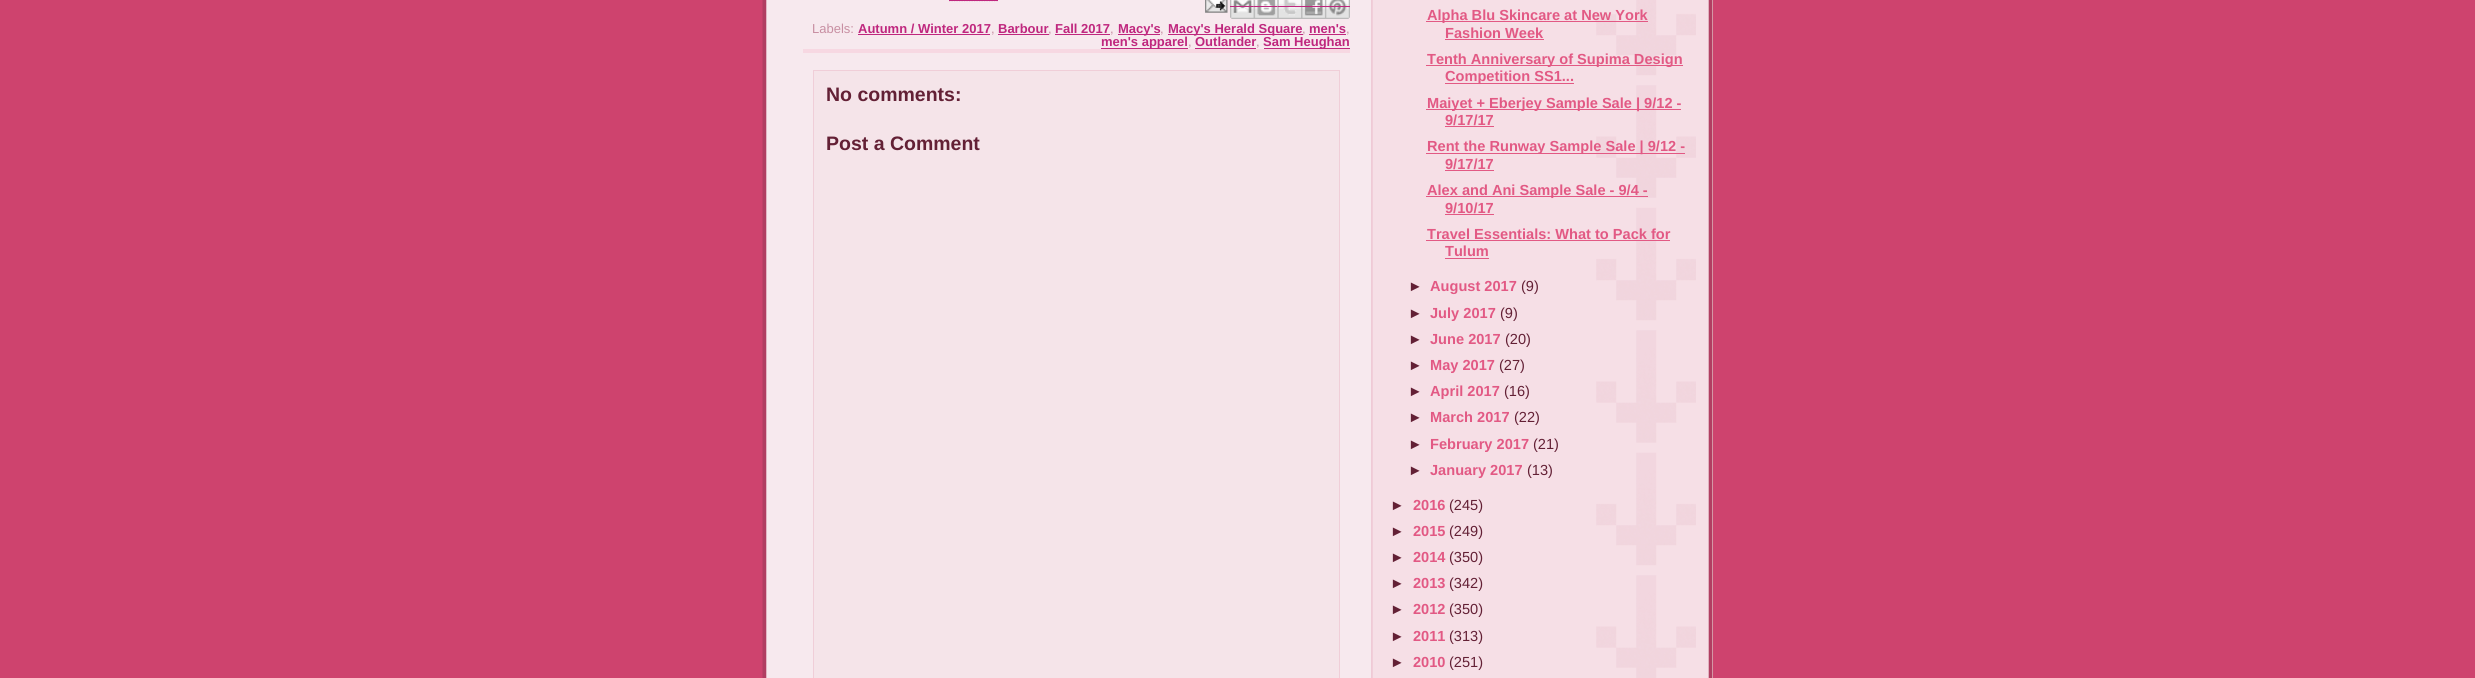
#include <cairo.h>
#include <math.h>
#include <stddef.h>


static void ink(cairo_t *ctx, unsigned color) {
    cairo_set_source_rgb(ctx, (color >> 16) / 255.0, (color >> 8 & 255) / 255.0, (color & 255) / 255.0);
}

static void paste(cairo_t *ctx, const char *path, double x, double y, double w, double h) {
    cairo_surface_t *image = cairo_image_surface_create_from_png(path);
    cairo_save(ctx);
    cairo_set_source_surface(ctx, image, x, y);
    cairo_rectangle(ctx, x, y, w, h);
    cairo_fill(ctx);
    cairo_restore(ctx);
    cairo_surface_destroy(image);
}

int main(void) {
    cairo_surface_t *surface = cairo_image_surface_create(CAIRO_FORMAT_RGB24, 2475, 678);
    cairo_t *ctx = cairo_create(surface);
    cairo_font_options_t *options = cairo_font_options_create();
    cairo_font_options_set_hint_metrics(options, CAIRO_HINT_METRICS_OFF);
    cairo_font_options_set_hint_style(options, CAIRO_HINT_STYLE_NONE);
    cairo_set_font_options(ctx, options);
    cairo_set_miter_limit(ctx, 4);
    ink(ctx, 0xCE436E);
    cairo_paint(ctx);
    ink(ctx, 0xF7F0E9);
    cairo_rectangle(ctx, 1712, 0, 1, 678);
    cairo_fill(ctx);
    paste(ctx, "media/1.png", 762, 0, 951, 678);
    ink(ctx, 0xF7D8E2);
    cairo_rectangle(ctx, 803, 49, 547, 4);
    cairo_fill(ctx);
    cairo_new_path(ctx);
    cairo_move_to(ctx, 949, 0.5);
    cairo_line_to(ctx, 998, 0.5);
    ink(ctx, 0xBF277E);
    cairo_set_line_width(ctx, 1.2);
    cairo_set_dash(ctx, (double[]){1.25, 1.25}, 2, 0);
    cairo_stroke(ctx);
    cairo_rectangle(ctx, 949, 0, 49, 1);
    cairo_fill(ctx);
    paste(ctx, "media/2.png", 1205, 0, 23, 13);
    paste(ctx, "media/3.png", 1230, 0, 24, 19);
    cairo_rectangle(ctx, 1230, 6, 25, 1);
    cairo_fill(ctx);
    paste(ctx, "media/4.png", 1253, 0, 25, 19);
    cairo_rectangle(ctx, 1254, 6, 25, 1);
    cairo_fill(ctx);
    paste(ctx, "media/5.png", 1277, 0, 25, 19);
    cairo_rectangle(ctx, 1278, 6, 25, 1);
    cairo_fill(ctx);
    paste(ctx, "media/6.png", 1301, 0, 24, 19);
    cairo_rectangle(ctx, 1301, 6, 25, 1);
    cairo_fill(ctx);
    paste(ctx, "media/7.png", 1325, 0, 25, 19);
    cairo_rectangle(ctx, 1325, 6, 25, 1);
    cairo_fill(ctx);
    cairo_select_font_face(ctx, "Liberation Sans", CAIRO_FONT_SLANT_NORMAL, CAIRO_FONT_WEIGHT_NORMAL);
    cairo_set_font_size(ctx, 13);
    ink(ctx, 0xC88FA2);
    cairo_move_to(ctx, 812, 33);
    cairo_show_text(ctx, "Labels:");
    cairo_select_font_face(ctx, "Liberation Sans", CAIRO_FONT_SLANT_NORMAL, CAIRO_FONT_WEIGHT_BOLD);
    ink(ctx, 0xBF277E);
    cairo_move_to(ctx, 858, 33);
    cairo_show_text(ctx, "Autumn / Winter 2017");
    cairo_select_font_face(ctx, "Liberation Sans", CAIRO_FONT_SLANT_NORMAL, CAIRO_FONT_WEIGHT_NORMAL);
    ink(ctx, 0xC88FA2);
    cairo_move_to(ctx, 991, 33);
    cairo_show_text(ctx, ",");
    ink(ctx, 0xBF277E);
    cairo_rectangle(ctx, 858, 34, 132, 1);
    cairo_fill(ctx);
    cairo_select_font_face(ctx, "Liberation Sans", CAIRO_FONT_SLANT_NORMAL, CAIRO_FONT_WEIGHT_BOLD);
    cairo_move_to(ctx, 998, 33);
    cairo_show_text(ctx, "Barbour");
    cairo_select_font_face(ctx, "Liberation Sans", CAIRO_FONT_SLANT_NORMAL, CAIRO_FONT_WEIGHT_NORMAL);
    ink(ctx, 0xC88FA2);
    cairo_move_to(ctx, 1048, 33);
    cairo_show_text(ctx, ",");
    ink(ctx, 0xBF277E);
    cairo_rectangle(ctx, 998, 34, 51, 1);
    cairo_fill(ctx);
    cairo_select_font_face(ctx, "Liberation Sans", CAIRO_FONT_SLANT_NORMAL, CAIRO_FONT_WEIGHT_BOLD);
    cairo_move_to(ctx, 1055, 33);
    cairo_show_text(ctx, "Fall 2017");
    cairo_select_font_face(ctx, "Liberation Sans", CAIRO_FONT_SLANT_NORMAL, CAIRO_FONT_WEIGHT_NORMAL);
    ink(ctx, 0xC88FA2);
    cairo_move_to(ctx, 1110, 33);
    cairo_show_text(ctx, ",");
    ink(ctx, 0xBF277E);
    cairo_rectangle(ctx, 1055, 34, 55, 1);
    cairo_fill(ctx);
    cairo_rectangle(ctx, 1118, 34, 42, 1);
    cairo_fill(ctx);
    cairo_select_font_face(ctx, "Liberation Sans", CAIRO_FONT_SLANT_NORMAL, CAIRO_FONT_WEIGHT_BOLD);
    cairo_move_to(ctx, 1118, 33);
    cairo_show_text(ctx, "Macy's");
    cairo_select_font_face(ctx, "Liberation Sans", CAIRO_FONT_SLANT_NORMAL, CAIRO_FONT_WEIGHT_NORMAL);
    ink(ctx, 0xC88FA2);
    cairo_move_to(ctx, 1160, 33);
    cairo_show_text(ctx, ",");
    ink(ctx, 0xBF277E);
    cairo_rectangle(ctx, 1168, 34, 135, 1);
    cairo_fill(ctx);
    cairo_select_font_face(ctx, "Liberation Sans", CAIRO_FONT_SLANT_NORMAL, CAIRO_FONT_WEIGHT_BOLD);
    cairo_move_to(ctx, 1168, 33);
    cairo_show_text(ctx, "Macy's Herald Square");
    cairo_select_font_face(ctx, "Liberation Sans", CAIRO_FONT_SLANT_NORMAL, CAIRO_FONT_WEIGHT_NORMAL);
    ink(ctx, 0xC88FA2);
    cairo_move_to(ctx, 1302, 33);
    cairo_show_text(ctx, ",");
    cairo_select_font_face(ctx, "Liberation Sans", CAIRO_FONT_SLANT_NORMAL, CAIRO_FONT_WEIGHT_BOLD);
    ink(ctx, 0xBF277E);
    cairo_move_to(ctx, 1309, 33);
    cairo_show_text(ctx, "men's");
    cairo_select_font_face(ctx, "Liberation Sans", CAIRO_FONT_SLANT_NORMAL, CAIRO_FONT_WEIGHT_NORMAL);
    ink(ctx, 0xC88FA2);
    cairo_move_to(ctx, 1346, 33);
    cairo_show_text(ctx, ",");
    ink(ctx, 0xBF277E);
    cairo_rectangle(ctx, 1309, 34, 37, 1);
    cairo_fill(ctx);
    cairo_rectangle(ctx, 1101, 48, 87, 1);
    cairo_fill(ctx);
    cairo_select_font_face(ctx, "Liberation Sans", CAIRO_FONT_SLANT_NORMAL, CAIRO_FONT_WEIGHT_BOLD);
    cairo_move_to(ctx, 1101, 46);
    cairo_show_text(ctx, "men's apparel");
    cairo_select_font_face(ctx, "Liberation Sans", CAIRO_FONT_SLANT_NORMAL, CAIRO_FONT_WEIGHT_NORMAL);
    ink(ctx, 0xC88FA2);
    cairo_move_to(ctx, 1188, 46);
    cairo_show_text(ctx, ",");
    cairo_select_font_face(ctx, "Liberation Sans", CAIRO_FONT_SLANT_NORMAL, CAIRO_FONT_WEIGHT_BOLD);
    ink(ctx, 0xBF277E);
    cairo_move_to(ctx, 1195, 46);
    cairo_show_text(ctx, "Outlander");
    cairo_select_font_face(ctx, "Liberation Sans", CAIRO_FONT_SLANT_NORMAL, CAIRO_FONT_WEIGHT_NORMAL);
    ink(ctx, 0xC88FA2);
    cairo_move_to(ctx, 1256, 46);
    cairo_show_text(ctx, ",");
    ink(ctx, 0xBF277E);
    cairo_rectangle(ctx, 1195, 48, 61, 1);
    cairo_fill(ctx);
    cairo_rectangle(ctx, 1264, 48, 86, 1);
    cairo_fill(ctx);
    cairo_select_font_face(ctx, "Liberation Sans", CAIRO_FONT_SLANT_NORMAL, CAIRO_FONT_WEIGHT_BOLD);
    cairo_move_to(ctx, 1263, 46);
    cairo_show_text(ctx, "Sam Heughan");
    ink(ctx, 0xF5E4E9);
    cairo_rectangle(ctx, 813.5, 70.5, 526, 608);
    cairo_fill_preserve(ctx);
    ink(ctx, 0xF0CED8);
    cairo_set_line_width(ctx, 1);
    cairo_set_dash(ctx, NULL, 0, 0);
    cairo_stroke(ctx);
    cairo_set_font_size(ctx, 19.5);
    ink(ctx, 0x632035);
    cairo_move_to(ctx, 826, 101);
    cairo_show_text(ctx, "No comments:");
    cairo_move_to(ctx, 826, 150);
    cairo_show_text(ctx, "Post a Comment");
    paste(ctx, "media/8.png", 1596, 0, 100, 678);
    ink(ctx, 0xE25984);
    cairo_rectangle(ctx, 1426, 21, 222, 1);
    cairo_fill(ctx);
    cairo_set_font_size(ctx, 14.6);
    cairo_move_to(ctx, 1427, 20);
    cairo_show_text(ctx, "Alpha Blu Skincare at New York");
    cairo_move_to(ctx, 1445, 38);
    cairo_show_text(ctx, "Fashion Week");
    cairo_rectangle(ctx, 1445, 39, 99, 1);
    cairo_fill(ctx);
    cairo_rectangle(ctx, 1426, 65, 257, 1);
    cairo_fill(ctx);
    cairo_move_to(ctx, 1427, 64);
    cairo_show_text(ctx, "Tenth Anniversary of Supima Design");
    cairo_rectangle(ctx, 1445, 83, 129, 1);
    cairo_fill(ctx);
    cairo_move_to(ctx, 1445, 81);
    cairo_show_text(ctx, "Competition SS1...");
    cairo_rectangle(ctx, 1426, 109, 255, 1);
    cairo_fill(ctx);
    cairo_move_to(ctx, 1427, 108);
    cairo_show_text(ctx, "Maiyet + Eberjey Sample Sale | 9/12 -");
    cairo_move_to(ctx, 1445, 125);
    cairo_show_text(ctx, "9/17/17");
    cairo_rectangle(ctx, 1445, 126, 49, 1);
    cairo_fill(ctx);
    cairo_rectangle(ctx, 1426, 153, 259, 1);
    cairo_fill(ctx);
    cairo_move_to(ctx, 1427, 151);
    cairo_show_text(ctx, "Rent the Runway Sample Sale | 9/12 -");
    cairo_move_to(ctx, 1445, 169);
    cairo_show_text(ctx, "9/17/17");
    cairo_rectangle(ctx, 1445, 170, 49, 1);
    cairo_fill(ctx);
    cairo_rectangle(ctx, 1426, 196, 222, 1);
    cairo_fill(ctx);
    cairo_move_to(ctx, 1427, 195);
    cairo_show_text(ctx, "Alex and Ani Sample Sale - 9/4 -");
    cairo_move_to(ctx, 1445, 213);
    cairo_show_text(ctx, "9/10/17");
    cairo_rectangle(ctx, 1445, 214, 49, 1);
    cairo_fill(ctx);
    cairo_move_to(ctx, 1427, 239);
    cairo_show_text(ctx, "Travel Essentials: What to Pack for");
    cairo_rectangle(ctx, 1426, 240, 244, 1);
    cairo_fill(ctx);
    cairo_move_to(ctx, 1445, 256);
    cairo_show_text(ctx, "Tulum");
    cairo_rectangle(ctx, 1445, 258, 44, 1);
    cairo_fill(ctx);
    ink(ctx, 0x632035);
    cairo_move_to(ctx, 1408, 291);
    cairo_show_text(ctx, "►");
    ink(ctx, 0xE25984);
    cairo_move_to(ctx, 1430, 291);
    cairo_show_text(ctx, "August 2017");
    cairo_select_font_face(ctx, "Liberation Sans", CAIRO_FONT_SLANT_NORMAL, CAIRO_FONT_WEIGHT_NORMAL);
    ink(ctx, 0x632035);
    cairo_move_to(ctx, 1521, 291);
    cairo_show_text(ctx, "(9)");
    cairo_select_font_face(ctx, "Liberation Sans", CAIRO_FONT_SLANT_NORMAL, CAIRO_FONT_WEIGHT_BOLD);
    cairo_move_to(ctx, 1408, 318);
    cairo_show_text(ctx, "►");
    ink(ctx, 0xE25984);
    cairo_move_to(ctx, 1430, 318);
    cairo_show_text(ctx, "July 2017");
    cairo_select_font_face(ctx, "Liberation Sans", CAIRO_FONT_SLANT_NORMAL, CAIRO_FONT_WEIGHT_NORMAL);
    ink(ctx, 0x632035);
    cairo_move_to(ctx, 1500, 318);
    cairo_show_text(ctx, "(9)");
    cairo_select_font_face(ctx, "Liberation Sans", CAIRO_FONT_SLANT_NORMAL, CAIRO_FONT_WEIGHT_BOLD);
    cairo_move_to(ctx, 1408, 344);
    cairo_show_text(ctx, "►");
    ink(ctx, 0xE25984);
    cairo_move_to(ctx, 1430, 344);
    cairo_show_text(ctx, "June 2017");
    cairo_select_font_face(ctx, "Liberation Sans", CAIRO_FONT_SLANT_NORMAL, CAIRO_FONT_WEIGHT_NORMAL);
    ink(ctx, 0x632035);
    cairo_move_to(ctx, 1505, 344);
    cairo_show_text(ctx, "(20)");
    cairo_select_font_face(ctx, "Liberation Sans", CAIRO_FONT_SLANT_NORMAL, CAIRO_FONT_WEIGHT_BOLD);
    cairo_move_to(ctx, 1408, 370);
    cairo_show_text(ctx, "►");
    ink(ctx, 0xE25984);
    cairo_move_to(ctx, 1430, 370);
    cairo_show_text(ctx, "May 2017");
    cairo_select_font_face(ctx, "Liberation Sans", CAIRO_FONT_SLANT_NORMAL, CAIRO_FONT_WEIGHT_NORMAL);
    ink(ctx, 0x632035);
    cairo_move_to(ctx, 1499, 370);
    cairo_show_text(ctx, "(27)");
    cairo_select_font_face(ctx, "Liberation Sans", CAIRO_FONT_SLANT_NORMAL, CAIRO_FONT_WEIGHT_BOLD);
    cairo_move_to(ctx, 1408, 396);
    cairo_show_text(ctx, "►");
    ink(ctx, 0xE25984);
    cairo_move_to(ctx, 1430, 396);
    cairo_show_text(ctx, "April 2017");
    cairo_select_font_face(ctx, "Liberation Sans", CAIRO_FONT_SLANT_NORMAL, CAIRO_FONT_WEIGHT_NORMAL);
    ink(ctx, 0x632035);
    cairo_move_to(ctx, 1504, 396);
    cairo_show_text(ctx, "(16)");
    cairo_select_font_face(ctx, "Liberation Sans", CAIRO_FONT_SLANT_NORMAL, CAIRO_FONT_WEIGHT_BOLD);
    cairo_move_to(ctx, 1408, 422);
    cairo_show_text(ctx, "►");
    ink(ctx, 0xE25984);
    cairo_move_to(ctx, 1430, 422);
    cairo_show_text(ctx, "March 2017");
    cairo_select_font_face(ctx, "Liberation Sans", CAIRO_FONT_SLANT_NORMAL, CAIRO_FONT_WEIGHT_NORMAL);
    ink(ctx, 0x632035);
    cairo_move_to(ctx, 1514, 422);
    cairo_show_text(ctx, "(22)");
    cairo_select_font_face(ctx, "Liberation Sans", CAIRO_FONT_SLANT_NORMAL, CAIRO_FONT_WEIGHT_BOLD);
    cairo_move_to(ctx, 1408, 449);
    cairo_show_text(ctx, "►");
    ink(ctx, 0xE25984);
    cairo_move_to(ctx, 1430, 449);
    cairo_show_text(ctx, "February 2017");
    cairo_select_font_face(ctx, "Liberation Sans", CAIRO_FONT_SLANT_NORMAL, CAIRO_FONT_WEIGHT_NORMAL);
    ink(ctx, 0x632035);
    cairo_move_to(ctx, 1533, 449);
    cairo_show_text(ctx, "(21)");
    cairo_select_font_face(ctx, "Liberation Sans", CAIRO_FONT_SLANT_NORMAL, CAIRO_FONT_WEIGHT_BOLD);
    cairo_move_to(ctx, 1408, 475);
    cairo_show_text(ctx, "►");
    ink(ctx, 0xE25984);
    cairo_move_to(ctx, 1430, 475);
    cairo_show_text(ctx, "January 2017");
    cairo_select_font_face(ctx, "Liberation Sans", CAIRO_FONT_SLANT_NORMAL, CAIRO_FONT_WEIGHT_NORMAL);
    ink(ctx, 0x632035);
    cairo_move_to(ctx, 1527, 475);
    cairo_show_text(ctx, "(13)");
    cairo_select_font_face(ctx, "Liberation Sans", CAIRO_FONT_SLANT_NORMAL, CAIRO_FONT_WEIGHT_BOLD);
    cairo_move_to(ctx, 1390, 510);
    cairo_show_text(ctx, "►");
    ink(ctx, 0xE25984);
    cairo_move_to(ctx, 1413, 510);
    cairo_show_text(ctx, "2016");
    cairo_select_font_face(ctx, "Liberation Sans", CAIRO_FONT_SLANT_NORMAL, CAIRO_FONT_WEIGHT_NORMAL);
    ink(ctx, 0x632035);
    cairo_move_to(ctx, 1449, 510);
    cairo_show_text(ctx, "(245)");
    cairo_select_font_face(ctx, "Liberation Sans", CAIRO_FONT_SLANT_NORMAL, CAIRO_FONT_WEIGHT_BOLD);
    cairo_move_to(ctx, 1390, 536);
    cairo_show_text(ctx, "►");
    ink(ctx, 0xE25984);
    cairo_move_to(ctx, 1413, 536);
    cairo_show_text(ctx, "2015");
    cairo_select_font_face(ctx, "Liberation Sans", CAIRO_FONT_SLANT_NORMAL, CAIRO_FONT_WEIGHT_NORMAL);
    ink(ctx, 0x632035);
    cairo_move_to(ctx, 1449, 536);
    cairo_show_text(ctx, "(249)");
    cairo_select_font_face(ctx, "Liberation Sans", CAIRO_FONT_SLANT_NORMAL, CAIRO_FONT_WEIGHT_BOLD);
    cairo_move_to(ctx, 1390, 562);
    cairo_show_text(ctx, "►");
    ink(ctx, 0xE25984);
    cairo_move_to(ctx, 1413, 562);
    cairo_show_text(ctx, "2014");
    cairo_select_font_face(ctx, "Liberation Sans", CAIRO_FONT_SLANT_NORMAL, CAIRO_FONT_WEIGHT_NORMAL);
    ink(ctx, 0x632035);
    cairo_move_to(ctx, 1449, 562);
    cairo_show_text(ctx, "(350)");
    cairo_select_font_face(ctx, "Liberation Sans", CAIRO_FONT_SLANT_NORMAL, CAIRO_FONT_WEIGHT_BOLD);
    cairo_move_to(ctx, 1390, 588);
    cairo_show_text(ctx, "►");
    ink(ctx, 0xE25984);
    cairo_move_to(ctx, 1413, 588);
    cairo_show_text(ctx, "2013");
    cairo_select_font_face(ctx, "Liberation Sans", CAIRO_FONT_SLANT_NORMAL, CAIRO_FONT_WEIGHT_NORMAL);
    ink(ctx, 0x632035);
    cairo_move_to(ctx, 1449, 588);
    cairo_show_text(ctx, "(342)");
    cairo_select_font_face(ctx, "Liberation Sans", CAIRO_FONT_SLANT_NORMAL, CAIRO_FONT_WEIGHT_BOLD);
    cairo_move_to(ctx, 1390, 614);
    cairo_show_text(ctx, "►");
    ink(ctx, 0xE25984);
    cairo_move_to(ctx, 1413, 614);
    cairo_show_text(ctx, "2012");
    cairo_select_font_face(ctx, "Liberation Sans", CAIRO_FONT_SLANT_NORMAL, CAIRO_FONT_WEIGHT_NORMAL);
    ink(ctx, 0x632035);
    cairo_move_to(ctx, 1449, 614);
    cairo_show_text(ctx, "(350)");
    cairo_select_font_face(ctx, "Liberation Sans", CAIRO_FONT_SLANT_NORMAL, CAIRO_FONT_WEIGHT_BOLD);
    cairo_move_to(ctx, 1390, 641);
    cairo_show_text(ctx, "►");
    ink(ctx, 0xE25984);
    cairo_move_to(ctx, 1413, 641);
    cairo_show_text(ctx, "2011");
    cairo_select_font_face(ctx, "Liberation Sans", CAIRO_FONT_SLANT_NORMAL, CAIRO_FONT_WEIGHT_NORMAL);
    ink(ctx, 0x632035);
    cairo_move_to(ctx, 1449, 641);
    cairo_show_text(ctx, "(313)");
    cairo_select_font_face(ctx, "Liberation Sans", CAIRO_FONT_SLANT_NORMAL, CAIRO_FONT_WEIGHT_BOLD);
    cairo_move_to(ctx, 1390, 667);
    cairo_show_text(ctx, "►");
    ink(ctx, 0xE25984);
    cairo_move_to(ctx, 1413, 667);
    cairo_show_text(ctx, "2010");
    cairo_select_font_face(ctx, "Liberation Sans", CAIRO_FONT_SLANT_NORMAL, CAIRO_FONT_WEIGHT_NORMAL);
    ink(ctx, 0x632035);
    cairo_move_to(ctx, 1449, 667);
    cairo_show_text(ctx, "(251)");
    cairo_surface_write_to_png(surface, "image.png");
    cairo_font_options_destroy(options);
    cairo_destroy(ctx);
    cairo_surface_destroy(surface);
    return 0;
}
